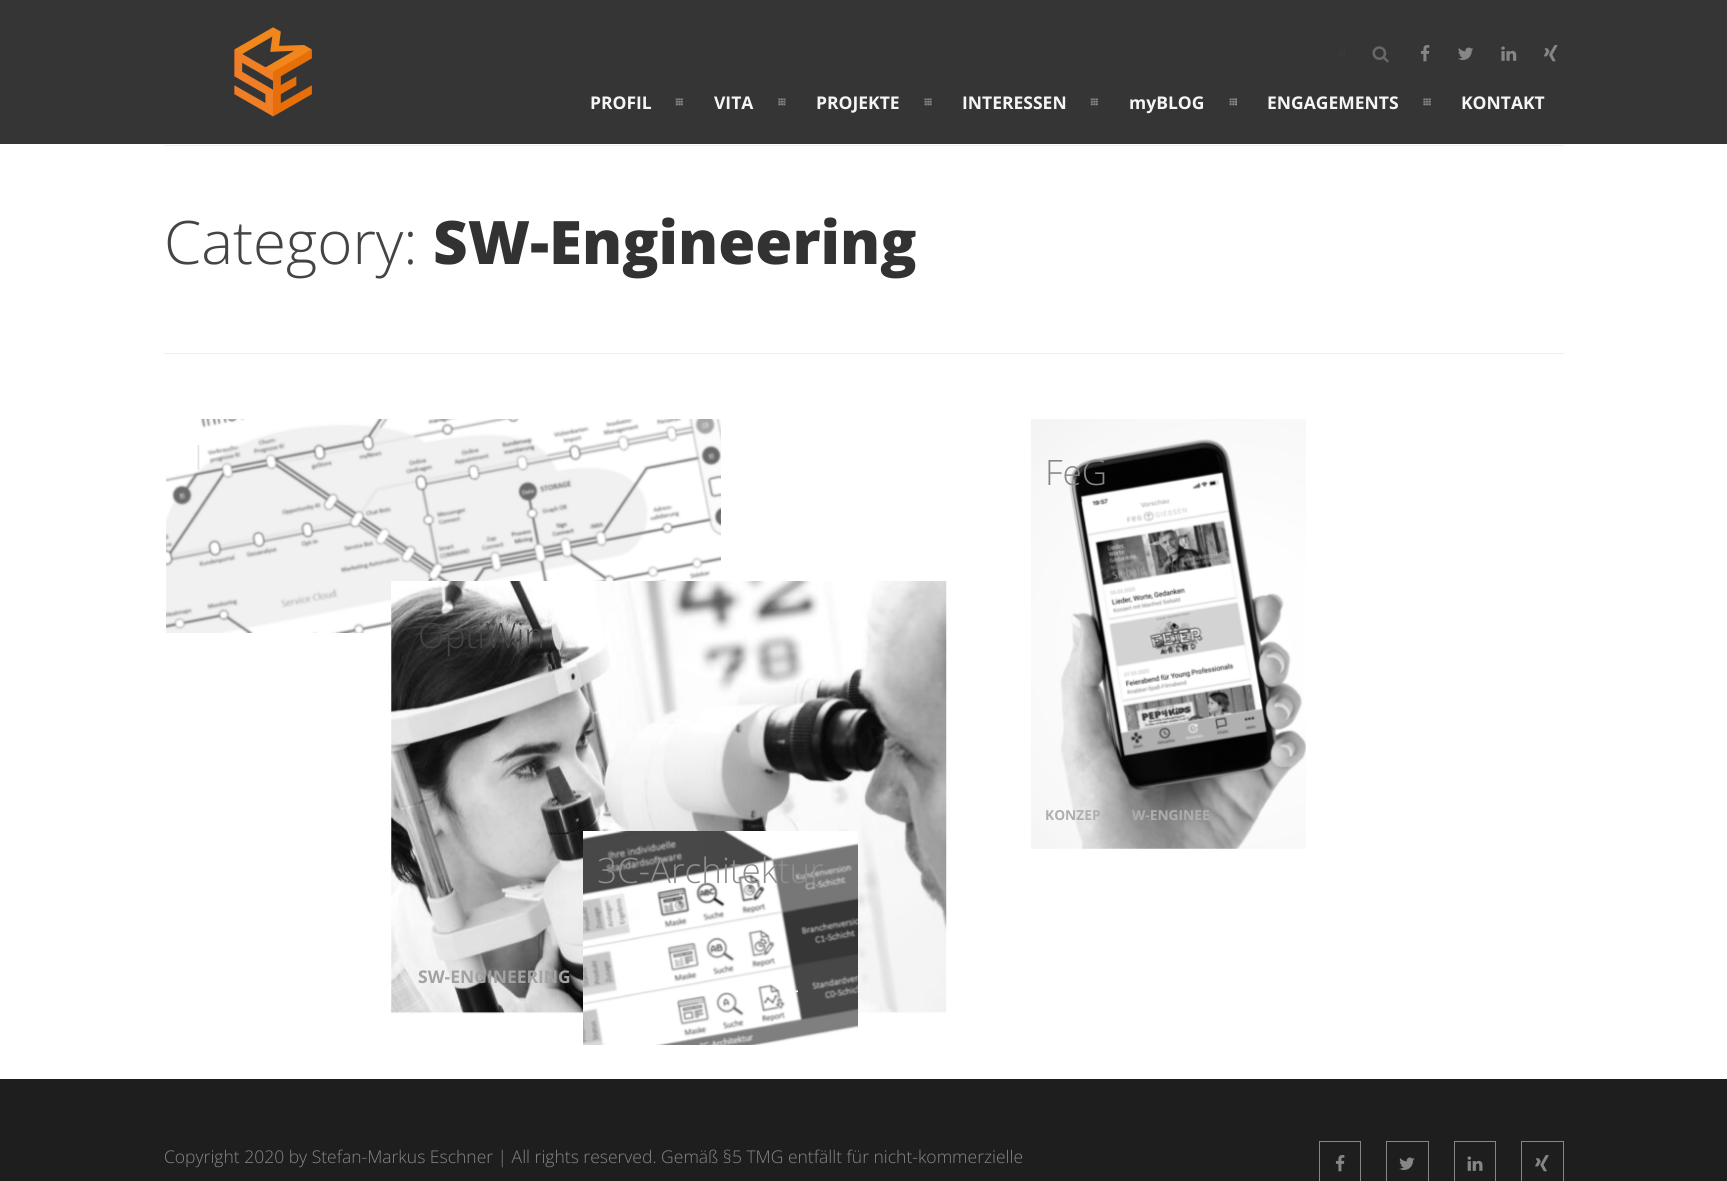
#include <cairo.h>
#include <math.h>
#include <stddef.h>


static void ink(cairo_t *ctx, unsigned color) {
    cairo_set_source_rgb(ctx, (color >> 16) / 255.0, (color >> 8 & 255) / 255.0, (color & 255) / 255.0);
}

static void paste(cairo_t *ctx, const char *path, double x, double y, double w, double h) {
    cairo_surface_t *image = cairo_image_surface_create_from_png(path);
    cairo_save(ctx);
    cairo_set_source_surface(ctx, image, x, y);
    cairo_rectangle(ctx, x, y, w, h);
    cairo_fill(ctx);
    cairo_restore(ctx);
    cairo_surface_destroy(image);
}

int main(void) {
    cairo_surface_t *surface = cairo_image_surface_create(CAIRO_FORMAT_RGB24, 1727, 1181);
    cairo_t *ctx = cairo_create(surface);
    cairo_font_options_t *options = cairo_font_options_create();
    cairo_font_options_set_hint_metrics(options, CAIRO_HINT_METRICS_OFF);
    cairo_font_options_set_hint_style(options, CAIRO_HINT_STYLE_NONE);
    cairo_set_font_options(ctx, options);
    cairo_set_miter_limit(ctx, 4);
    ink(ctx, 0xFFFFFF);
    cairo_paint(ctx);
    ink(ctx, 0x353535);
    cairo_rectangle(ctx, 0, 0, 1727, 144);
    cairo_fill(ctx);
    paste(ctx, "media/1.png", 234, 27, 78, 90);
    paste(ctx, "media/2.png", 1339, 50, 6, 6);
    paste(ctx, "media/3.png", 1372, 46, 17, 17);
    paste(ctx, "media/4.png", 1420, 45, 10, 17);
    paste(ctx, "media/5.png", 1458, 47, 15, 13);
    paste(ctx, "media/6.png", 1501, 46, 16, 15);
    paste(ctx, "media/7.png", 1543, 45, 15, 17);
    paste(ctx, "media/8.png", 675, 98, 8, 8);
    cairo_select_font_face(ctx, "Open Sans", CAIRO_FONT_SLANT_NORMAL, CAIRO_FONT_WEIGHT_BOLD);
    cairo_set_font_size(ctx, 17.5);
    ink(ctx, 0xF5F5F5);
    cairo_move_to(ctx, 590, 109);
    cairo_show_text(ctx, "PROFIL");
    paste(ctx, "media/9.png", 778, 98, 8, 8);
    cairo_move_to(ctx, 714, 109);
    cairo_show_text(ctx, "VITA");
    paste(ctx, "media/10.png", 924, 98, 8, 8);
    cairo_move_to(ctx, 816, 109);
    cairo_show_text(ctx, "PROJEKTE");
    paste(ctx, "media/11.png", 1090, 98, 8, 8);
    cairo_move_to(ctx, 962, 109);
    cairo_show_text(ctx, "INTERESSEN");
    paste(ctx, "media/12.png", 1229, 98, 8, 8);
    cairo_move_to(ctx, 1129, 109);
    cairo_show_text(ctx, "myBLOG");
    paste(ctx, "media/13.png", 1423, 98, 8, 8);
    cairo_move_to(ctx, 1267, 109);
    cairo_show_text(ctx, "ENGAGEMENTS");
    cairo_move_to(ctx, 1461, 109);
    cairo_show_text(ctx, "KONTAKT");
    ink(ctx, 0xEFEFEF);
    cairo_rectangle(ctx, 164, 145, 1400, 1);
    cairo_fill(ctx);
    cairo_rectangle(ctx, 164, 353, 1400, 1);
    cairo_fill(ctx);
    cairo_select_font_face(ctx, "Open Sans Light", CAIRO_FONT_SLANT_NORMAL, CAIRO_FONT_WEIGHT_NORMAL);
    cairo_set_font_size(ctx, 60);
    ink(ctx, 0x444444);
    cairo_move_to(ctx, 164, 264);
    cairo_show_text(ctx, "Category:");
    cairo_select_font_face(ctx, "Open Sans ExtraBold", CAIRO_FONT_SLANT_NORMAL, CAIRO_FONT_WEIGHT_NORMAL);
    ink(ctx, 0x323232);
    cairo_move_to(ctx, 433, 264);
    cairo_show_text(ctx, "SW-Engineering");
    paste(ctx, "media/14.png", 166, 419, 555, 214);
    cairo_select_font_face(ctx, "Open Sans Light", CAIRO_FONT_SLANT_NORMAL, CAIRO_FONT_WEIGHT_NORMAL);
    cairo_set_font_size(ctx, 35);
    ink(ctx, 0xE3E3E3);
    cairo_move_to(ctx, 194, 470);
    cairo_show_text(ctx, "I");
    ink(ctx, 0xFFFFFF);
    cairo_rectangle(ctx, 391, 581, 330, 52);
    cairo_fill(ctx);
    paste(ctx, "media/15.png", 391, 581, 556, 433);
    ink(ctx, 0x444444);
    cairo_move_to(ctx, 418, 648);
    cairo_show_text(ctx, "OptiWin");
    cairo_select_font_face(ctx, "Open Sans", CAIRO_FONT_SLANT_NORMAL, CAIRO_FONT_WEIGHT_BOLD);
    cairo_set_font_size(ctx, 17.5);
    ink(ctx, 0xA2A2A2);
    cairo_move_to(ctx, 418, 983);
    cairo_show_text(ctx, "SW-ENGINEERING");
    paste(ctx, "media/16.png", 583, 831, 275, 214);
    cairo_select_font_face(ctx, "Open Sans Light", CAIRO_FONT_SLANT_NORMAL, CAIRO_FONT_WEIGHT_NORMAL);
    cairo_set_font_size(ctx, 35);
    ink(ctx, 0x8E8E8E);
    cairo_move_to(ctx, 597, 883);
    cairo_show_text(ctx, "3C-Architektur");
    cairo_select_font_face(ctx, "Open Sans", CAIRO_FONT_SLANT_NORMAL, CAIRO_FONT_WEIGHT_BOLD);
    cairo_set_font_size(ctx, 13.75);
    ink(ctx, 0xF5F5F5);
    cairo_move_to(ctx, 794, 995);
    cairo_show_text(ctx, "-");
    paste(ctx, "media/17.png", 1031, 419, 275, 430);
    cairo_select_font_face(ctx, "Open Sans Light", CAIRO_FONT_SLANT_NORMAL, CAIRO_FONT_WEIGHT_NORMAL);
    cairo_set_font_size(ctx, 35);
    ink(ctx, 0x868686);
    cairo_move_to(ctx, 1045, 485);
    cairo_show_text(ctx, "FeG");
    cairo_select_font_face(ctx, "Open Sans", CAIRO_FONT_SLANT_NORMAL, CAIRO_FONT_WEIGHT_BOLD);
    cairo_set_font_size(ctx, 13.75);
    ink(ctx, 0xAEAEAE);
    cairo_move_to(ctx, 1045, 820);
    cairo_show_text(ctx, "KONZEP");
    cairo_move_to(ctx, 1132, 820);
    cairo_show_text(ctx, "W-ENGINEE");
    ink(ctx, 0x1E1E1E);
    cairo_rectangle(ctx, 0, 1079, 1727, 102);
    cairo_fill(ctx);
    cairo_select_font_face(ctx, "Open Sans Light", CAIRO_FONT_SLANT_NORMAL, CAIRO_FONT_WEIGHT_NORMAL);
    cairo_set_font_size(ctx, 17.5);
    ink(ctx, 0x868686);
    cairo_move_to(ctx, 164, 1163);
    cairo_show_text(ctx, "Copyright 2020 by Stefan-Markus Eschner | All rights reserved. Gemäß §5 TMG entfällt für nicht-kommerzielle");
    cairo_rectangle(ctx, 1319.5, 1141.5, 41, 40);
    cairo_set_line_width(ctx, 1);
    cairo_stroke(ctx);
    paste(ctx, "media/18.png", 1335, 1155, 10, 17);
    cairo_rectangle(ctx, 1386.5, 1141.5, 42, 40);
    cairo_stroke(ctx);
    paste(ctx, "media/19.png", 1399, 1157, 16, 13);
    cairo_rectangle(ctx, 1454.5, 1141.5, 41, 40);
    cairo_stroke(ctx);
    paste(ctx, "media/20.png", 1467, 1156, 16, 15);
    cairo_rectangle(ctx, 1521.5, 1141.5, 42, 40);
    cairo_stroke(ctx);
    paste(ctx, "media/21.png", 1535, 1155, 14, 17);
    cairo_surface_write_to_png(surface, "image.png");
    cairo_font_options_destroy(options);
    cairo_destroy(ctx);
    cairo_surface_destroy(surface);
    return 0;
}
